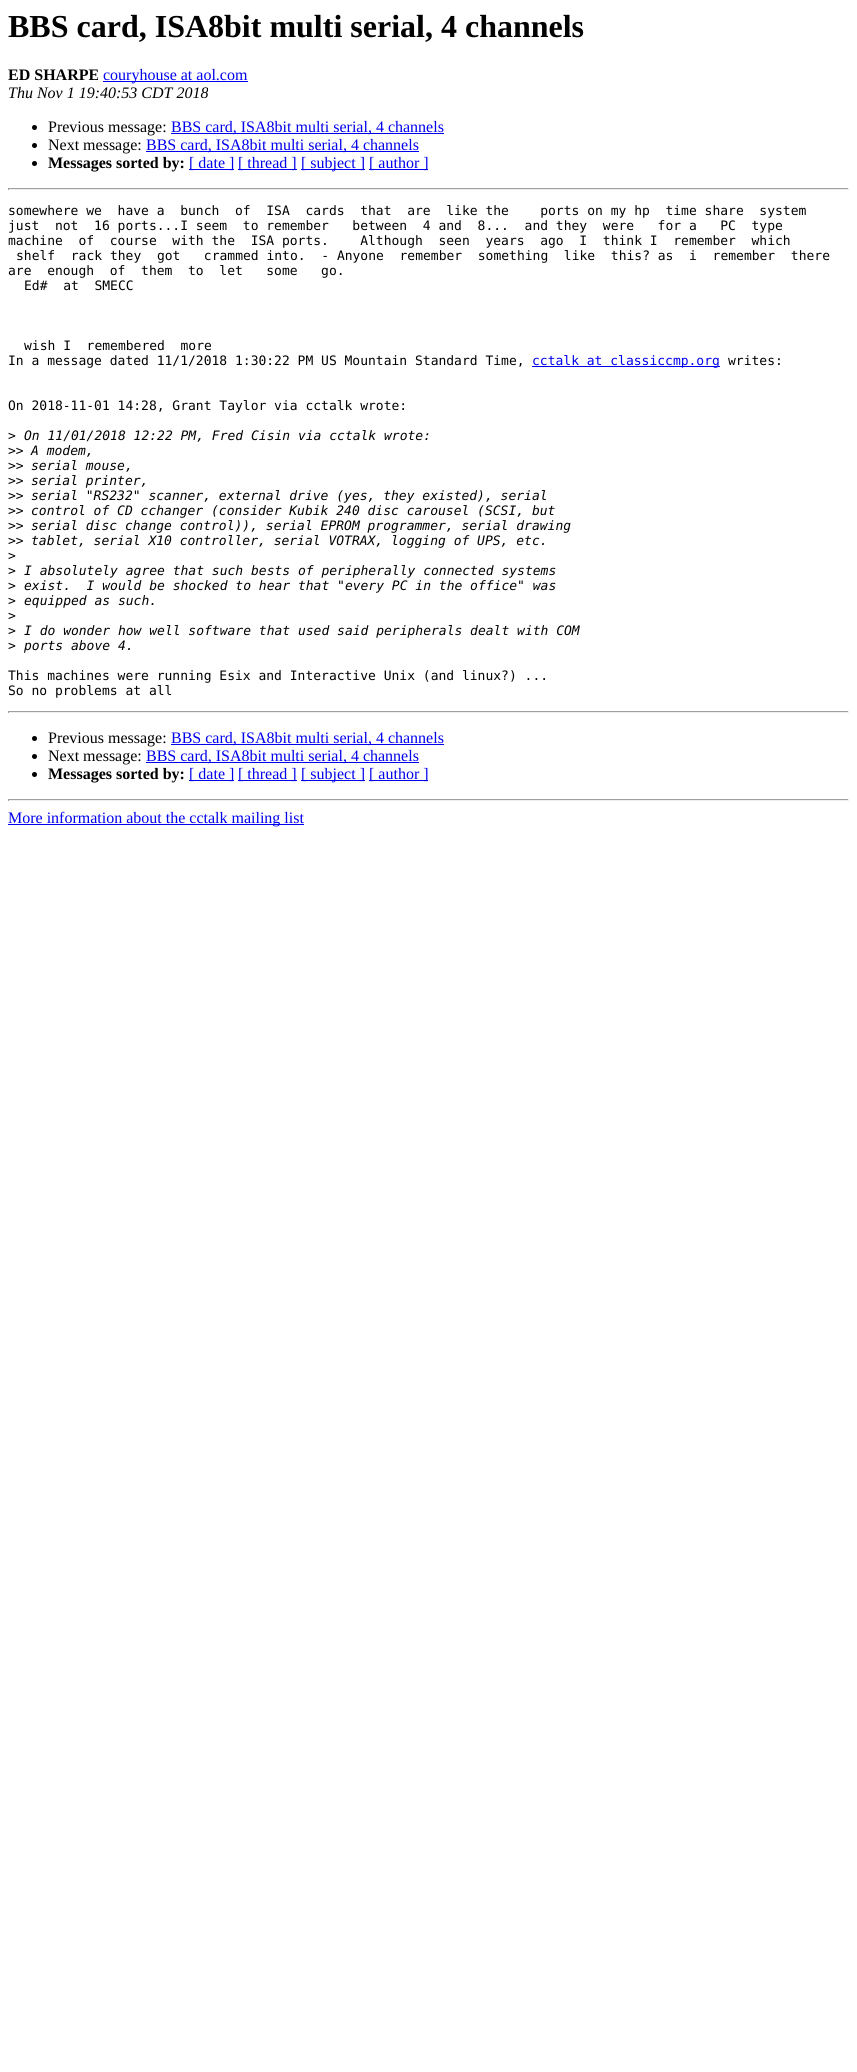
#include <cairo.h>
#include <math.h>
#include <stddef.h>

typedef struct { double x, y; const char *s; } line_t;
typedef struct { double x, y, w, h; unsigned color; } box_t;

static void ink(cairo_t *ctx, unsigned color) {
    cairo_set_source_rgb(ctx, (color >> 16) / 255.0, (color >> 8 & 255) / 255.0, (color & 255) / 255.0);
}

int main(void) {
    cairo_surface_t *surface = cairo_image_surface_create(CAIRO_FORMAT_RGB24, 857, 2072);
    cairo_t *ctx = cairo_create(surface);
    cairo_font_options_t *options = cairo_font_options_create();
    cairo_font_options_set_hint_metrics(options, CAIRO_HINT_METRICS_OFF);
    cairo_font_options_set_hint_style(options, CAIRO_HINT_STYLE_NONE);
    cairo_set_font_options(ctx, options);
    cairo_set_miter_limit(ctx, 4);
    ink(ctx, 0xFFFFFF);
    cairo_paint(ctx);
    cairo_select_font_face(ctx, "Liberation Serif", CAIRO_FONT_SLANT_NORMAL, CAIRO_FONT_WEIGHT_BOLD);
    cairo_set_font_size(ctx, 32);
    ink(ctx, 0x000000);
    cairo_move_to(ctx, 8, 37);
    cairo_show_text(ctx, "BBS card, ISA8bit multi serial, 4 channels");
    cairo_set_font_size(ctx, 16);
    cairo_move_to(ctx, 8, 80);
    cairo_show_text(ctx, "ED SHARPE");
    ink(ctx, 0x0000EE);
    cairo_rectangle(ctx, 103, 81, 145, 1);
    cairo_fill(ctx);
    cairo_select_font_face(ctx, "Liberation Serif", CAIRO_FONT_SLANT_NORMAL, CAIRO_FONT_WEIGHT_NORMAL);
    cairo_move_to(ctx, 103, 80);
    cairo_show_text(ctx, "couryhouse at aol.com");
    cairo_select_font_face(ctx, "Liberation Serif", CAIRO_FONT_SLANT_ITALIC, CAIRO_FONT_WEIGHT_NORMAL);
    ink(ctx, 0x000000);
    cairo_move_to(ctx, 8, 98);
    cairo_show_text(ctx, "Thu Nov 1 19:40:53 CDT 2018");
    cairo_new_path(ctx);
    cairo_arc(ctx, 34.5, 127.5, 2.5, 0, 2 * M_PI);
    cairo_fill(ctx);
    cairo_select_font_face(ctx, "Liberation Serif", CAIRO_FONT_SLANT_NORMAL, CAIRO_FONT_WEIGHT_NORMAL);
    cairo_move_to(ctx, 48, 132);
    cairo_show_text(ctx, "Previous message:");
    ink(ctx, 0x0000EE);
    cairo_rectangle(ctx, 171, 133, 273, 1);
    cairo_fill(ctx);
    cairo_move_to(ctx, 171, 132);
    cairo_show_text(ctx, "BBS card, ISA8bit multi serial, 4 channels");
    ink(ctx, 0x000000);
    cairo_new_path(ctx);
    cairo_arc(ctx, 34.5, 145.5, 2.5, 0, 2 * M_PI);
    cairo_fill(ctx);
    cairo_move_to(ctx, 48, 150);
    cairo_show_text(ctx, "Next message:");
    ink(ctx, 0x0000EE);
    cairo_rectangle(ctx, 146, 151, 273, 1);
    cairo_fill(ctx);
    cairo_move_to(ctx, 146, 150);
    cairo_show_text(ctx, "BBS card, ISA8bit multi serial, 4 channels");
    ink(ctx, 0x000000);
    cairo_new_path(ctx);
    cairo_arc(ctx, 34.5, 163.5, 2.5, 0, 2 * M_PI);
    cairo_fill(ctx);
    cairo_select_font_face(ctx, "Liberation Serif", CAIRO_FONT_SLANT_NORMAL, CAIRO_FONT_WEIGHT_BOLD);
    cairo_move_to(ctx, 48, 168);
    cairo_show_text(ctx, "Messages sorted by:");
    ink(ctx, 0x0000EE);
    cairo_rectangle(ctx, 189, 169, 45, 1);
    cairo_fill(ctx);
    cairo_select_font_face(ctx, "Liberation Serif", CAIRO_FONT_SLANT_NORMAL, CAIRO_FONT_WEIGHT_NORMAL);
    cairo_move_to(ctx, 189, 168);
    cairo_show_text(ctx, "[ date ]");
    cairo_rectangle(ctx, 238, 169, 59, 1);
    cairo_fill(ctx);
    cairo_move_to(ctx, 238, 168);
    cairo_show_text(ctx, "[ thread ]");
    cairo_rectangle(ctx, 301, 169, 64, 1);
    cairo_fill(ctx);
    cairo_move_to(ctx, 301, 168);
    cairo_show_text(ctx, "[ subject ]");
    cairo_rectangle(ctx, 369, 169, 59, 1);
    cairo_fill(ctx);
    cairo_move_to(ctx, 369, 168);
    cairo_show_text(ctx, "[ author ]");
    {
        static const box_t items[] = {
            {8, 188, 841, 1, 0x9F9F9F},
            {848, 188, 1, 2, 0xEEEEEE},
            {8, 189, 841, 1, 0xEEEEEE},
            {8, 188, 1, 2, 0x9F9F9F},
        };
        for (size_t i = 0; i < sizeof items / sizeof *items; i++) {
            ink(ctx, items[i].color);
            cairo_rectangle(ctx, items[i].x, items[i].y, items[i].w, items[i].h);
            cairo_fill(ctx);
        }
    }
    cairo_select_font_face(ctx, "DejaVu Sans Mono", CAIRO_FONT_SLANT_NORMAL, CAIRO_FONT_WEIGHT_NORMAL);
    cairo_set_font_size(ctx, 13);
    ink(ctx, 0x000000);
    {
        static const line_t items[] = {
            {8, 215, "somewhere we  have a  bunch  of  ISA  cards  that  are  like the    ports on my hp  time share  system"},
            {8, 230, "just  not  16 ports...I seem  to remember   between  4 and  8...  and they  were   for a   PC  type"},
            {8, 245, "machine  of  course  with the  ISA ports.    Although  seen  years  ago  I  think I  remember  which"},
            {16, 260, "shelf  rack they  got   crammed into.  - Anyone  remember  something  like  this? as  i  remember  there"},
            {8, 275, "are  enough  of  them  to  let   some   go."},
            {24, 290, "Ed#  at  SMECC"},
            {24, 350, "wish I  remembered  more"},
            {8, 365, "In a message dated 11/1/2018 1:30:22 PM US Mountain Standard Time,"},
        };
        for (size_t i = 0; i < sizeof items / sizeof *items; i++) {
            cairo_move_to(ctx, items[i].x, items[i].y);
            cairo_show_text(ctx, items[i].s);
        }
    }
    ink(ctx, 0x0000EE);
    cairo_rectangle(ctx, 532, 366, 188, 1);
    cairo_fill(ctx);
    cairo_move_to(ctx, 532, 365);
    cairo_show_text(ctx, "cctalk at classiccmp.org");
    ink(ctx, 0x000000);
    {
        static const line_t items[] = {
            {728, 365, "writes:"},
            {8, 410, "On 2018-11-01 14:28, Grant Taylor via cctalk wrote:"},
            {8, 440, ">"},
        };
        for (size_t i = 0; i < sizeof items / sizeof *items; i++) {
            cairo_move_to(ctx, items[i].x, items[i].y);
            cairo_show_text(ctx, items[i].s);
        }
    }
    cairo_select_font_face(ctx, "DejaVu Sans Mono", CAIRO_FONT_SLANT_ITALIC, CAIRO_FONT_WEIGHT_NORMAL);
    cairo_move_to(ctx, 24, 440);
    cairo_show_text(ctx, "On 11/01/2018 12:22 PM, Fred Cisin via cctalk wrote:");
    cairo_select_font_face(ctx, "DejaVu Sans Mono", CAIRO_FONT_SLANT_NORMAL, CAIRO_FONT_WEIGHT_NORMAL);
    cairo_move_to(ctx, 8, 455);
    cairo_show_text(ctx, ">>");
    cairo_select_font_face(ctx, "DejaVu Sans Mono", CAIRO_FONT_SLANT_ITALIC, CAIRO_FONT_WEIGHT_NORMAL);
    cairo_move_to(ctx, 31, 455);
    cairo_show_text(ctx, "A modem,");
    cairo_select_font_face(ctx, "DejaVu Sans Mono", CAIRO_FONT_SLANT_NORMAL, CAIRO_FONT_WEIGHT_NORMAL);
    cairo_move_to(ctx, 8, 470);
    cairo_show_text(ctx, ">>");
    cairo_select_font_face(ctx, "DejaVu Sans Mono", CAIRO_FONT_SLANT_ITALIC, CAIRO_FONT_WEIGHT_NORMAL);
    cairo_move_to(ctx, 31, 470);
    cairo_show_text(ctx, "serial mouse,");
    cairo_select_font_face(ctx, "DejaVu Sans Mono", CAIRO_FONT_SLANT_NORMAL, CAIRO_FONT_WEIGHT_NORMAL);
    cairo_move_to(ctx, 8, 485);
    cairo_show_text(ctx, ">>");
    cairo_select_font_face(ctx, "DejaVu Sans Mono", CAIRO_FONT_SLANT_ITALIC, CAIRO_FONT_WEIGHT_NORMAL);
    cairo_move_to(ctx, 31, 485);
    cairo_show_text(ctx, "serial printer,");
    cairo_select_font_face(ctx, "DejaVu Sans Mono", CAIRO_FONT_SLANT_NORMAL, CAIRO_FONT_WEIGHT_NORMAL);
    cairo_move_to(ctx, 8, 500);
    cairo_show_text(ctx, ">>");
    cairo_select_font_face(ctx, "DejaVu Sans Mono", CAIRO_FONT_SLANT_ITALIC, CAIRO_FONT_WEIGHT_NORMAL);
    cairo_move_to(ctx, 31, 500);
    cairo_show_text(ctx, "serial \"RS232\" scanner, external drive (yes, they existed), serial");
    cairo_select_font_face(ctx, "DejaVu Sans Mono", CAIRO_FONT_SLANT_NORMAL, CAIRO_FONT_WEIGHT_NORMAL);
    cairo_move_to(ctx, 8, 515);
    cairo_show_text(ctx, ">>");
    cairo_select_font_face(ctx, "DejaVu Sans Mono", CAIRO_FONT_SLANT_ITALIC, CAIRO_FONT_WEIGHT_NORMAL);
    cairo_move_to(ctx, 31, 515);
    cairo_show_text(ctx, "control of CD cchanger (consider Kubik 240 disc carousel (SCSI, but");
    cairo_select_font_face(ctx, "DejaVu Sans Mono", CAIRO_FONT_SLANT_NORMAL, CAIRO_FONT_WEIGHT_NORMAL);
    cairo_move_to(ctx, 8, 530);
    cairo_show_text(ctx, ">>");
    cairo_select_font_face(ctx, "DejaVu Sans Mono", CAIRO_FONT_SLANT_ITALIC, CAIRO_FONT_WEIGHT_NORMAL);
    cairo_move_to(ctx, 31, 530);
    cairo_show_text(ctx, "serial disc change control)), serial EPROM programmer, serial drawing");
    cairo_select_font_face(ctx, "DejaVu Sans Mono", CAIRO_FONT_SLANT_NORMAL, CAIRO_FONT_WEIGHT_NORMAL);
    cairo_move_to(ctx, 8, 545);
    cairo_show_text(ctx, ">>");
    cairo_select_font_face(ctx, "DejaVu Sans Mono", CAIRO_FONT_SLANT_ITALIC, CAIRO_FONT_WEIGHT_NORMAL);
    cairo_move_to(ctx, 31, 545);
    cairo_show_text(ctx, "tablet, serial X10 controller, serial VOTRAX, logging of UPS, etc.");
    cairo_select_font_face(ctx, "DejaVu Sans Mono", CAIRO_FONT_SLANT_NORMAL, CAIRO_FONT_WEIGHT_NORMAL);
    cairo_move_to(ctx, 8, 560);
    cairo_show_text(ctx, ">");
    cairo_move_to(ctx, 8, 575);
    cairo_show_text(ctx, ">");
    cairo_select_font_face(ctx, "DejaVu Sans Mono", CAIRO_FONT_SLANT_ITALIC, CAIRO_FONT_WEIGHT_NORMAL);
    cairo_move_to(ctx, 24, 575);
    cairo_show_text(ctx, "I absolutely agree that such bests of peripherally connected systems");
    cairo_select_font_face(ctx, "DejaVu Sans Mono", CAIRO_FONT_SLANT_NORMAL, CAIRO_FONT_WEIGHT_NORMAL);
    cairo_move_to(ctx, 8, 590);
    cairo_show_text(ctx, ">");
    cairo_select_font_face(ctx, "DejaVu Sans Mono", CAIRO_FONT_SLANT_ITALIC, CAIRO_FONT_WEIGHT_NORMAL);
    cairo_move_to(ctx, 24, 590);
    cairo_show_text(ctx, "exist.  I would be shocked to hear that \"every PC in the office\" was");
    cairo_select_font_face(ctx, "DejaVu Sans Mono", CAIRO_FONT_SLANT_NORMAL, CAIRO_FONT_WEIGHT_NORMAL);
    cairo_move_to(ctx, 8, 605);
    cairo_show_text(ctx, ">");
    cairo_select_font_face(ctx, "DejaVu Sans Mono", CAIRO_FONT_SLANT_ITALIC, CAIRO_FONT_WEIGHT_NORMAL);
    cairo_move_to(ctx, 24, 605);
    cairo_show_text(ctx, "equipped as such.");
    cairo_select_font_face(ctx, "DejaVu Sans Mono", CAIRO_FONT_SLANT_NORMAL, CAIRO_FONT_WEIGHT_NORMAL);
    cairo_move_to(ctx, 8, 620);
    cairo_show_text(ctx, ">");
    cairo_move_to(ctx, 8, 635);
    cairo_show_text(ctx, ">");
    cairo_select_font_face(ctx, "DejaVu Sans Mono", CAIRO_FONT_SLANT_ITALIC, CAIRO_FONT_WEIGHT_NORMAL);
    cairo_move_to(ctx, 24, 635);
    cairo_show_text(ctx, "I do wonder how well software that used said peripherals dealt with COM");
    cairo_select_font_face(ctx, "DejaVu Sans Mono", CAIRO_FONT_SLANT_NORMAL, CAIRO_FONT_WEIGHT_NORMAL);
    cairo_move_to(ctx, 8, 650);
    cairo_show_text(ctx, ">");
    cairo_select_font_face(ctx, "DejaVu Sans Mono", CAIRO_FONT_SLANT_ITALIC, CAIRO_FONT_WEIGHT_NORMAL);
    cairo_move_to(ctx, 24, 650);
    cairo_show_text(ctx, "ports above 4.");
    cairo_select_font_face(ctx, "DejaVu Sans Mono", CAIRO_FONT_SLANT_NORMAL, CAIRO_FONT_WEIGHT_NORMAL);
    cairo_move_to(ctx, 8, 680);
    cairo_show_text(ctx, "This machines were running Esix and Interactive Unix (and linux?) ...");
    cairo_move_to(ctx, 8, 695);
    cairo_show_text(ctx, "So no problems at all");
    {
        static const box_t items[] = {
            {8, 711, 841, 1, 0x9F9F9F},
            {848, 711, 1, 2, 0xEEEEEE},
            {8, 712, 841, 1, 0xEEEEEE},
            {8, 711, 1, 2, 0x9F9F9F},
        };
        for (size_t i = 0; i < sizeof items / sizeof *items; i++) {
            ink(ctx, items[i].color);
            cairo_rectangle(ctx, items[i].x, items[i].y, items[i].w, items[i].h);
            cairo_fill(ctx);
        }
    }
    ink(ctx, 0x000000);
    cairo_new_path(ctx);
    cairo_arc(ctx, 34.5, 738.5, 2.5, 0, 2 * M_PI);
    cairo_fill(ctx);
    cairo_select_font_face(ctx, "Liberation Serif", CAIRO_FONT_SLANT_NORMAL, CAIRO_FONT_WEIGHT_NORMAL);
    cairo_set_font_size(ctx, 16);
    cairo_move_to(ctx, 48, 743);
    cairo_show_text(ctx, "Previous message:");
    ink(ctx, 0x0000EE);
    cairo_rectangle(ctx, 171, 744, 273, 1);
    cairo_fill(ctx);
    cairo_move_to(ctx, 171, 743);
    cairo_show_text(ctx, "BBS card, ISA8bit multi serial, 4 channels");
    ink(ctx, 0x000000);
    cairo_new_path(ctx);
    cairo_arc(ctx, 34.5, 756.5, 2.5, 0, 2 * M_PI);
    cairo_fill(ctx);
    cairo_move_to(ctx, 48, 761);
    cairo_show_text(ctx, "Next message:");
    ink(ctx, 0x0000EE);
    cairo_rectangle(ctx, 146, 762, 273, 1);
    cairo_fill(ctx);
    cairo_move_to(ctx, 146, 761);
    cairo_show_text(ctx, "BBS card, ISA8bit multi serial, 4 channels");
    ink(ctx, 0x000000);
    cairo_new_path(ctx);
    cairo_arc(ctx, 34.5, 774.5, 2.5, 0, 2 * M_PI);
    cairo_fill(ctx);
    cairo_select_font_face(ctx, "Liberation Serif", CAIRO_FONT_SLANT_NORMAL, CAIRO_FONT_WEIGHT_BOLD);
    cairo_move_to(ctx, 48, 779);
    cairo_show_text(ctx, "Messages sorted by:");
    ink(ctx, 0x0000EE);
    cairo_rectangle(ctx, 189, 780, 45, 1);
    cairo_fill(ctx);
    cairo_select_font_face(ctx, "Liberation Serif", CAIRO_FONT_SLANT_NORMAL, CAIRO_FONT_WEIGHT_NORMAL);
    cairo_move_to(ctx, 189, 779);
    cairo_show_text(ctx, "[ date ]");
    cairo_rectangle(ctx, 238, 780, 59, 1);
    cairo_fill(ctx);
    cairo_move_to(ctx, 238, 779);
    cairo_show_text(ctx, "[ thread ]");
    cairo_rectangle(ctx, 301, 780, 64, 1);
    cairo_fill(ctx);
    cairo_move_to(ctx, 301, 779);
    cairo_show_text(ctx, "[ subject ]");
    cairo_rectangle(ctx, 369, 780, 59, 1);
    cairo_fill(ctx);
    cairo_move_to(ctx, 369, 779);
    cairo_show_text(ctx, "[ author ]");
    {
        static const box_t items[] = {
            {8, 799, 841, 1, 0x9F9F9F},
            {848, 799, 1, 2, 0xEEEEEE},
            {8, 800, 841, 1, 0xEEEEEE},
            {8, 799, 1, 2, 0x9F9F9F},
            {8, 824, 296, 1, 0x0000EE},
        };
        for (size_t i = 0; i < sizeof items / sizeof *items; i++) {
            ink(ctx, items[i].color);
            cairo_rectangle(ctx, items[i].x, items[i].y, items[i].w, items[i].h);
            cairo_fill(ctx);
        }
    }
    cairo_move_to(ctx, 8, 823);
    cairo_show_text(ctx, "More information about the cctalk mailing list");
    cairo_surface_write_to_png(surface, "image.png");
    cairo_font_options_destroy(options);
    cairo_destroy(ctx);
    cairo_surface_destroy(surface);
    return 0;
}
